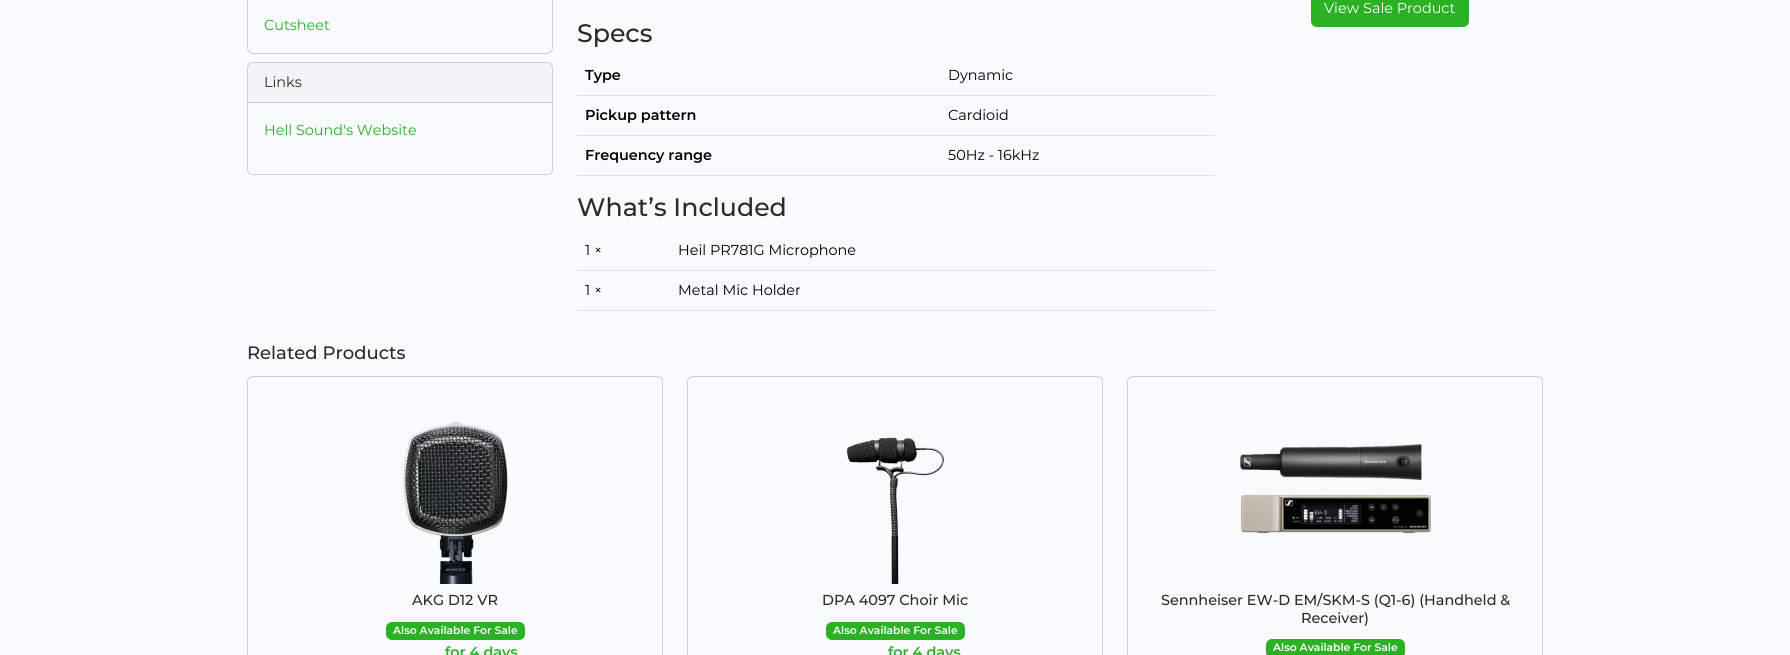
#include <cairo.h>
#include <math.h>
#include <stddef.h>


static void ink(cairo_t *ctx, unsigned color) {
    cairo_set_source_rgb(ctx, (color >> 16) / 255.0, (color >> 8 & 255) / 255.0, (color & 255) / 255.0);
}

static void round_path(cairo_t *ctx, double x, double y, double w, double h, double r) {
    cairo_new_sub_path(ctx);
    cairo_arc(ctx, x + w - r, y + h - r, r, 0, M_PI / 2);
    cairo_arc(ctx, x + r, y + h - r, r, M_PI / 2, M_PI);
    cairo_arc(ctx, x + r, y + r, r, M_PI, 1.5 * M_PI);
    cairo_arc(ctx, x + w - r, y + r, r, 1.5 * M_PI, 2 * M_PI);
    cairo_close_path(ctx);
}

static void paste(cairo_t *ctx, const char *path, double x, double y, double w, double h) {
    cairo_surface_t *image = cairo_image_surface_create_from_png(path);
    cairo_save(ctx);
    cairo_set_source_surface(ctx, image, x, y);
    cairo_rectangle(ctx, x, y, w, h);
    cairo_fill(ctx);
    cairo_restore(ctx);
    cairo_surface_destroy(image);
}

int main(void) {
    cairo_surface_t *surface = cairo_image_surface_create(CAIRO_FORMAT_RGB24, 1790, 655);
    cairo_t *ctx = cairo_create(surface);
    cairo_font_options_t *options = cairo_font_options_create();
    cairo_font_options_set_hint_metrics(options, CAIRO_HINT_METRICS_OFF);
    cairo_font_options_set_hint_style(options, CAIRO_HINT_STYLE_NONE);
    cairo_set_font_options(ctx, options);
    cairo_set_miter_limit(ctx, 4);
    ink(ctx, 0xF8FAFC);
    cairo_paint(ctx);
    ink(ctx, 0x2AB224);
    round_path(ctx, 1311.5, -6.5, 157, 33, 5.5);
    cairo_fill_preserve(ctx);
    cairo_set_line_width(ctx, 1);
    cairo_stroke(ctx);
    cairo_select_font_face(ctx, "Montserrat", CAIRO_FONT_SLANT_NORMAL, CAIRO_FONT_WEIGHT_NORMAL);
    cairo_set_font_size(ctx, 14.4);
    ink(ctx, 0xFFFFFF);
    cairo_move_to(ctx, 1324, 13);
    cairo_show_text(ctx, "View Sale Product");
    round_path(ctx, 247.5, -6.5, 305, 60, 5.5);
    ink(ctx, 0xCCCED0);
    cairo_stroke(ctx);
    ink(ctx, 0x2AB224);
    cairo_move_to(ctx, 264, 30);
    cairo_show_text(ctx, "Cutsheet");
    round_path(ctx, 247.5, 62.5, 305, 112, 5.5);
    ink(ctx, 0xCCCED0);
    cairo_stroke(ctx);
    cairo_set_source_rgba(ctx, 0.173, 0.165, 0.157, 0.03);
    cairo_rectangle(ctx, 248, 63, 304, 39);
    cairo_fill(ctx);
    ink(ctx, 0xC7C9CA);
    cairo_rectangle(ctx, 248, 102, 304, 1);
    cairo_fill(ctx);
    ink(ctx, 0x2C2A28);
    cairo_move_to(ctx, 264, 87);
    cairo_show_text(ctx, "Links");
    ink(ctx, 0x2AB224);
    cairo_move_to(ctx, 264, 135);
    cairo_show_text(ctx, "Hell Sound's Website");
    cairo_select_font_face(ctx, "Montserrat Medium", CAIRO_FONT_SLANT_NORMAL, CAIRO_FONT_WEIGHT_NORMAL);
    cairo_set_font_size(ctx, 25.25);
    ink(ctx, 0x2C2A28);
    cairo_move_to(ctx, 577, 42);
    cairo_show_text(ctx, "Specs");
    cairo_select_font_face(ctx, "Montserrat SemiBold", CAIRO_FONT_SLANT_NORMAL, CAIRO_FONT_WEIGHT_NORMAL);
    cairo_set_font_size(ctx, 14.4);
    ink(ctx, 0x000000);
    cairo_move_to(ctx, 585, 80);
    cairo_show_text(ctx, "Type");
    ink(ctx, 0xDEE2E6);
    cairo_rectangle(ctx, 577, 95, 637, 1);
    cairo_fill(ctx);
    cairo_select_font_face(ctx, "Montserrat", CAIRO_FONT_SLANT_NORMAL, CAIRO_FONT_WEIGHT_NORMAL);
    ink(ctx, 0x000000);
    cairo_move_to(ctx, 948, 80);
    cairo_show_text(ctx, "Dynamic");
    cairo_select_font_face(ctx, "Montserrat SemiBold", CAIRO_FONT_SLANT_NORMAL, CAIRO_FONT_WEIGHT_NORMAL);
    cairo_move_to(ctx, 585, 120);
    cairo_show_text(ctx, "Pickup pattern");
    ink(ctx, 0xDEE2E6);
    cairo_rectangle(ctx, 577, 135, 637, 1);
    cairo_fill(ctx);
    cairo_select_font_face(ctx, "Montserrat", CAIRO_FONT_SLANT_NORMAL, CAIRO_FONT_WEIGHT_NORMAL);
    ink(ctx, 0x000000);
    cairo_move_to(ctx, 948, 120);
    cairo_show_text(ctx, "Cardioid");
    cairo_select_font_face(ctx, "Montserrat SemiBold", CAIRO_FONT_SLANT_NORMAL, CAIRO_FONT_WEIGHT_NORMAL);
    cairo_move_to(ctx, 585, 160);
    cairo_show_text(ctx, "Frequency range");
    ink(ctx, 0xDEE2E6);
    cairo_rectangle(ctx, 577, 175, 637, 1);
    cairo_fill(ctx);
    cairo_select_font_face(ctx, "Montserrat", CAIRO_FONT_SLANT_NORMAL, CAIRO_FONT_WEIGHT_NORMAL);
    ink(ctx, 0x000000);
    cairo_move_to(ctx, 948, 160);
    cairo_show_text(ctx, "50Hz - 16kHz");
    cairo_select_font_face(ctx, "Montserrat Medium", CAIRO_FONT_SLANT_NORMAL, CAIRO_FONT_WEIGHT_NORMAL);
    cairo_set_font_size(ctx, 25.25);
    ink(ctx, 0x2C2A28);
    cairo_move_to(ctx, 577, 216);
    cairo_show_text(ctx, "What’s Included");
    cairo_select_font_face(ctx, "Montserrat", CAIRO_FONT_SLANT_NORMAL, CAIRO_FONT_WEIGHT_NORMAL);
    cairo_set_font_size(ctx, 14.4);
    ink(ctx, 0x000000);
    cairo_move_to(ctx, 585, 255);
    cairo_show_text(ctx, "1 ×");
    ink(ctx, 0xDEE2E6);
    cairo_rectangle(ctx, 577, 270, 637, 1);
    cairo_fill(ctx);
    ink(ctx, 0x000000);
    cairo_move_to(ctx, 678, 255);
    cairo_show_text(ctx, "Heil PR781G Microphone");
    cairo_move_to(ctx, 585, 295);
    cairo_show_text(ctx, "1 ×");
    ink(ctx, 0xDEE2E6);
    cairo_rectangle(ctx, 577, 310, 637, 1);
    cairo_fill(ctx);
    ink(ctx, 0x000000);
    cairo_move_to(ctx, 678, 295);
    cairo_show_text(ctx, "Metal Mic Holder");
    cairo_select_font_face(ctx, "Montserrat Medium", CAIRO_FONT_SLANT_NORMAL, CAIRO_FONT_WEIGHT_NORMAL);
    cairo_set_font_size(ctx, 18);
    ink(ctx, 0x2C2A28);
    cairo_move_to(ctx, 247, 359);
    cairo_show_text(ctx, "Related Products");
    round_path(ctx, 247.5, 376.5, 415, 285, 5.5);
    ink(ctx, 0xCCCED0);
    cairo_stroke(ctx);
    paste(ctx, "media/1.png", 403, 421, 105, 163);
    cairo_set_font_size(ctx, 14.4);
    ink(ctx, 0x2C2A28);
    cairo_move_to(ctx, 412, 605);
    cairo_show_text(ctx, "AKG D12 VR");
    ink(ctx, 0x2AB224);
    round_path(ctx, 386, 622, 139, 18, 6);
    cairo_fill(ctx);
    cairo_select_font_face(ctx, "Montserrat SemiBold", CAIRO_FONT_SLANT_NORMAL, CAIRO_FONT_WEIGHT_NORMAL);
    cairo_set_font_size(ctx, 10.75);
    ink(ctx, 0xFFFFFF);
    cairo_move_to(ctx, 393, 634);
    cairo_show_text(ctx, "Also Available For Sale");
    cairo_set_font_size(ctx, 14.4);
    ink(ctx, 0x2AB224);
    cairo_move_to(ctx, 445, 657);
    cairo_show_text(ctx, "for 4 days");
    round_path(ctx, 687.5, 376.5, 415, 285, 5.5);
    ink(ctx, 0xCCCED0);
    cairo_stroke(ctx);
    paste(ctx, "media/2.png", 846, 437, 98, 147);
    cairo_select_font_face(ctx, "Montserrat Medium", CAIRO_FONT_SLANT_NORMAL, CAIRO_FONT_WEIGHT_NORMAL);
    ink(ctx, 0x2C2A28);
    cairo_move_to(ctx, 822, 605);
    cairo_show_text(ctx, "DPA 4097 Choir Mic");
    ink(ctx, 0x2AB224);
    round_path(ctx, 826, 622, 139, 18, 6);
    cairo_fill(ctx);
    cairo_select_font_face(ctx, "Montserrat SemiBold", CAIRO_FONT_SLANT_NORMAL, CAIRO_FONT_WEIGHT_NORMAL);
    cairo_set_font_size(ctx, 10.75);
    ink(ctx, 0xFFFFFF);
    cairo_move_to(ctx, 833, 634);
    cairo_show_text(ctx, "Also Available For Sale");
    cairo_set_font_size(ctx, 14.4);
    ink(ctx, 0x2AB224);
    cairo_move_to(ctx, 888, 657);
    cairo_show_text(ctx, "for 4 days");
    round_path(ctx, 1127.5, 376.5, 415, 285, 5.5);
    ink(ctx, 0xCCCED0);
    cairo_stroke(ctx);
    paste(ctx, "media/3.png", 1240, 444, 191, 90);
    cairo_select_font_face(ctx, "Montserrat Medium", CAIRO_FONT_SLANT_NORMAL, CAIRO_FONT_WEIGHT_NORMAL);
    ink(ctx, 0x2C2A28);
    cairo_move_to(ctx, 1161, 605);
    cairo_show_text(ctx, "Sennheiser EW-D EM/SKM-S (Q1-6) (Handheld &");
    cairo_move_to(ctx, 1301, 623);
    cairo_show_text(ctx, "Receiver)");
    ink(ctx, 0x2AB224);
    round_path(ctx, 1266, 639, 139, 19, 6);
    cairo_fill(ctx);
    cairo_select_font_face(ctx, "Montserrat SemiBold", CAIRO_FONT_SLANT_NORMAL, CAIRO_FONT_WEIGHT_NORMAL);
    cairo_set_font_size(ctx, 10.75);
    ink(ctx, 0xFFFFFF);
    cairo_move_to(ctx, 1273, 651);
    cairo_show_text(ctx, "Also Available For Sale");
    cairo_surface_write_to_png(surface, "image.png");
    cairo_font_options_destroy(options);
    cairo_destroy(ctx);
    cairo_surface_destroy(surface);
    return 0;
}
